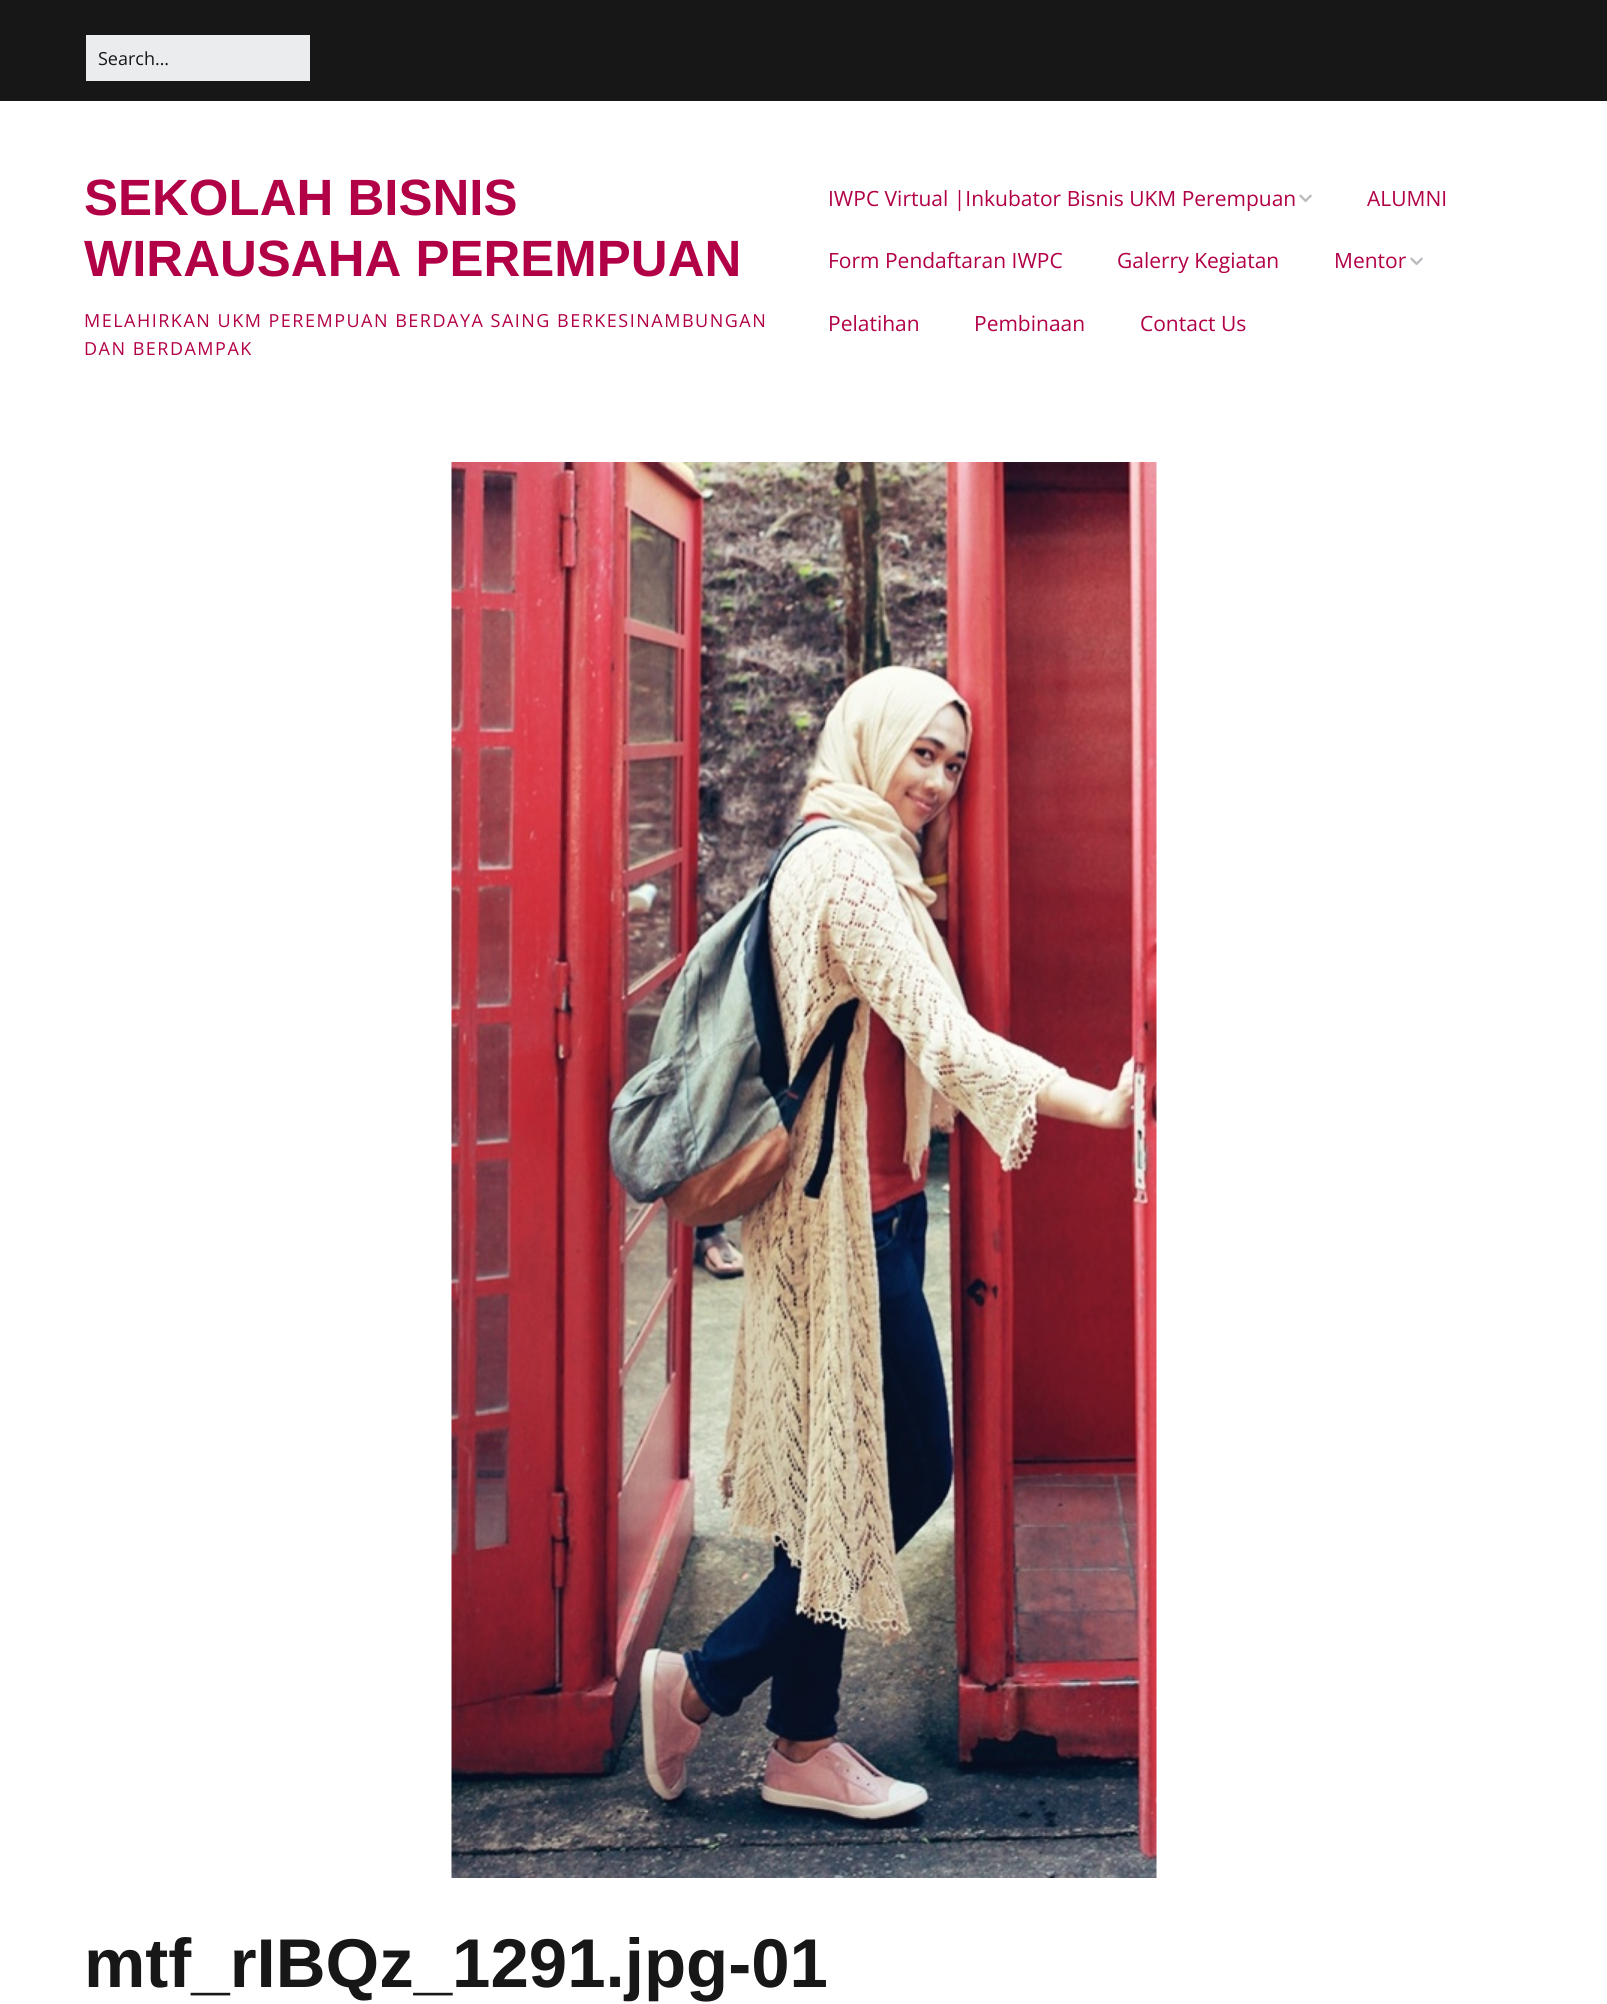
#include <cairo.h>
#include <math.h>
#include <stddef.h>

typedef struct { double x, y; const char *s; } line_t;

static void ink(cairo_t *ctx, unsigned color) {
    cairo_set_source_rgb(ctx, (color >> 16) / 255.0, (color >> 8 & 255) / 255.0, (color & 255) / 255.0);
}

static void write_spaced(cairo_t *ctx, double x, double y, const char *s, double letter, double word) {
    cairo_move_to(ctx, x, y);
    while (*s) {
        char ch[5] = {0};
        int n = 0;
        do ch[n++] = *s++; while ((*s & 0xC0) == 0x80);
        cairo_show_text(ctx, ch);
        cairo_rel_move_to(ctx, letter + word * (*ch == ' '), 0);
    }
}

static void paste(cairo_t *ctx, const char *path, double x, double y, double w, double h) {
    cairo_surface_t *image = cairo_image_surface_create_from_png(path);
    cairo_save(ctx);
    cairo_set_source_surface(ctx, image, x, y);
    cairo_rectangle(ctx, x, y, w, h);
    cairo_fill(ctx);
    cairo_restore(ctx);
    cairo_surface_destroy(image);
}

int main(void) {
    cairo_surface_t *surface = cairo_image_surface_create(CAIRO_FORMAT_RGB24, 1607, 2004);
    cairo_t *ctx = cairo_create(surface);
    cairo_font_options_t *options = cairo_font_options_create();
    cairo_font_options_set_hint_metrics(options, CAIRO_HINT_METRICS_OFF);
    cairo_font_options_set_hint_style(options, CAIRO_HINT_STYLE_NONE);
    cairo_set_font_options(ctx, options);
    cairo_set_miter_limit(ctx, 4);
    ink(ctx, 0x171717);
    cairo_paint(ctx);
    ink(ctx, 0xEAECEE);
    cairo_rectangle(ctx, 86, 35, 224, 46);
    cairo_fill(ctx);
    cairo_select_font_face(ctx, "Open Sans", CAIRO_FONT_SLANT_NORMAL, CAIRO_FONT_WEIGHT_NORMAL);
    cairo_set_font_size(ctx, 18);
    ink(ctx, 0x171717);
    cairo_move_to(ctx, 98, 65);
    cairo_show_text(ctx, "Search…");
    ink(ctx, 0xFFFFFF);
    cairo_rectangle(ctx, 0, 101, 1607, 1903);
    cairo_fill(ctx);
    cairo_select_font_face(ctx, "Liberation Sans", CAIRO_FONT_SLANT_NORMAL, CAIRO_FONT_WEIGHT_BOLD);
    cairo_set_font_size(ctx, 51);
    ink(ctx, 0xB20047);
    cairo_move_to(ctx, 84, 215);
    cairo_show_text(ctx, "SEKOLAH BISNIS");
    cairo_move_to(ctx, 84, 276);
    cairo_show_text(ctx, "WIRAUSAHA PEREMPUAN");
    cairo_select_font_face(ctx, "Open Sans", CAIRO_FONT_SLANT_NORMAL, CAIRO_FONT_WEIGHT_NORMAL);
    cairo_set_font_size(ctx, 18);
    write_spaced(ctx, 84, 327, "MELAHIRKAN UKM PEREMPUAN BERDAYA SAING BERKESINAMBUNGAN", 1.5, 0);
    write_spaced(ctx, 84, 355, "DAN BERDAMPAK", 1.5, 0);
    cairo_set_font_size(ctx, 21);
    cairo_move_to(ctx, 828, 206);
    cairo_show_text(ctx, "IWPC Virtual |Inkubator Bisnis UKM Perempuan");
    paste(ctx, "media/1.png", 1299, 194, 13, 9);
    {
        static const line_t items[] = {
            {1367, 206, "ALUMNI"},
            {828, 268, "Form Pendaftaran IWPC"},
            {1117, 268, "Galerry Kegiatan"},
            {1334, 268, "Mentor"},
        };
        for (size_t i = 0; i < sizeof items / sizeof *items; i++) {
            cairo_move_to(ctx, items[i].x, items[i].y);
            cairo_show_text(ctx, items[i].s);
        }
    }
    paste(ctx, "media/1.png", 1410, 257, 13, 9);
    {
        static const line_t items[] = {
            {828, 331, "Pelatihan"},
            {974, 331, "Pembinaan"},
            {1140, 331, "Contact Us"},
        };
        for (size_t i = 0; i < sizeof items / sizeof *items; i++) {
            cairo_move_to(ctx, items[i].x, items[i].y);
            cairo_show_text(ctx, items[i].s);
        }
    }
    paste(ctx, "media/2.png", 451, 462, 706, 1416);
    cairo_select_font_face(ctx, "Liberation Sans", CAIRO_FONT_SLANT_NORMAL, CAIRO_FONT_WEIGHT_BOLD);
    cairo_set_font_size(ctx, 69);
    ink(ctx, 0x171717);
    cairo_move_to(ctx, 84, 1987);
    cairo_show_text(ctx, "mtf_rIBQz_1291.jpg-01");
    cairo_surface_write_to_png(surface, "image.png");
    cairo_font_options_destroy(options);
    cairo_destroy(ctx);
    cairo_surface_destroy(surface);
    return 0;
}
